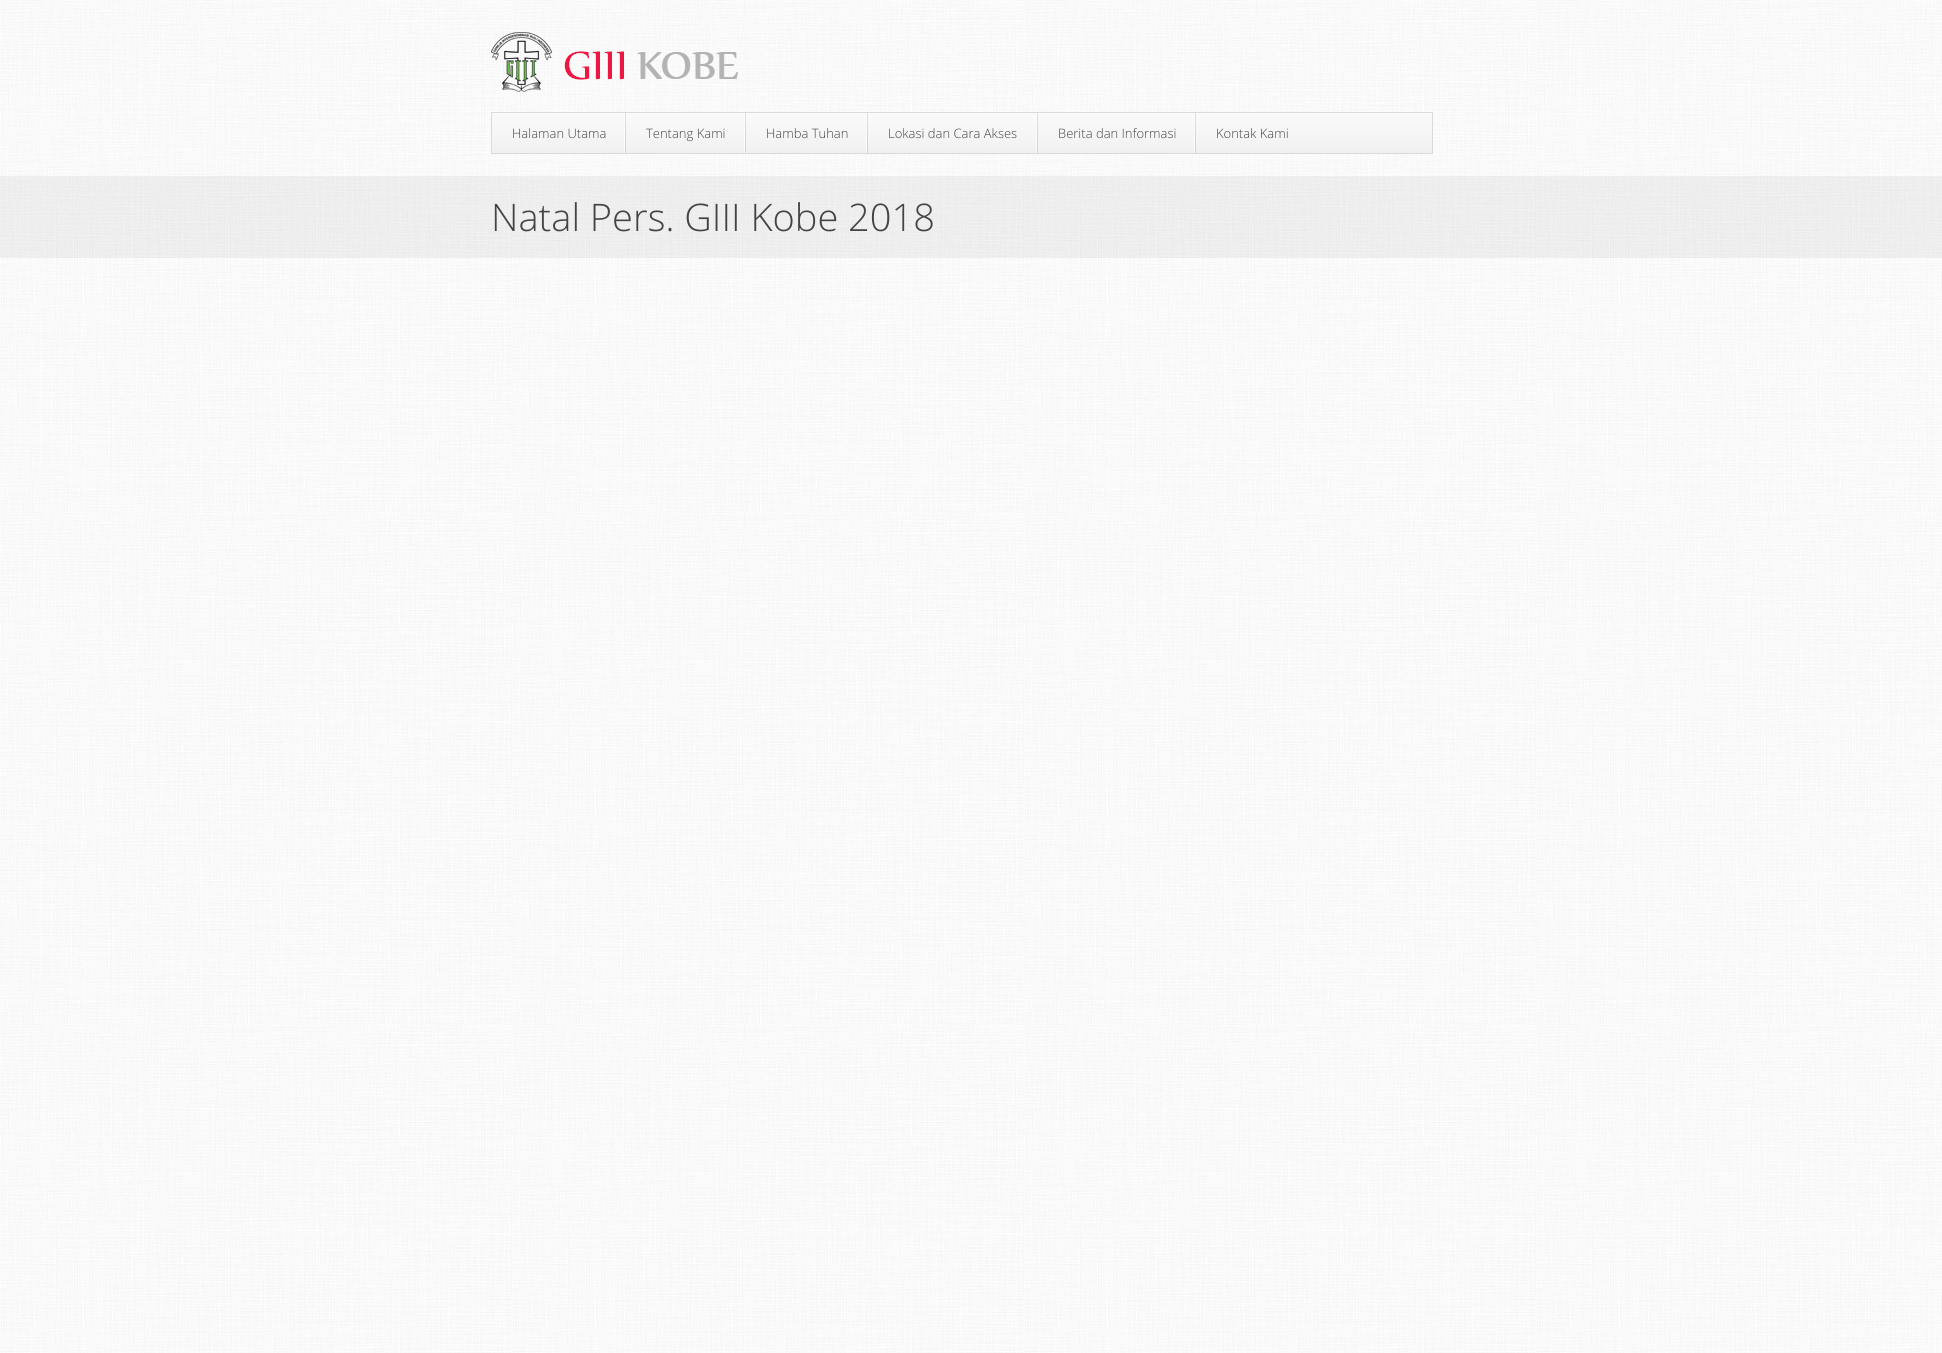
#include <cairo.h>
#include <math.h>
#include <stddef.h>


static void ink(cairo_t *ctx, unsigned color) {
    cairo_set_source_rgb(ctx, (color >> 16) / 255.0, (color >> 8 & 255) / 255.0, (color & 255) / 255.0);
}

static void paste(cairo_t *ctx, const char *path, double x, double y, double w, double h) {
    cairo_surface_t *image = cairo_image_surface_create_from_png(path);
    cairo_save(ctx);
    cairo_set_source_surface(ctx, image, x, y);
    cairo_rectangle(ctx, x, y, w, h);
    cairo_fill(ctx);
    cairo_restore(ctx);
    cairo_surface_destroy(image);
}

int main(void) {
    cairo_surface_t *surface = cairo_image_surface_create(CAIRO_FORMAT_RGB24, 1942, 1353);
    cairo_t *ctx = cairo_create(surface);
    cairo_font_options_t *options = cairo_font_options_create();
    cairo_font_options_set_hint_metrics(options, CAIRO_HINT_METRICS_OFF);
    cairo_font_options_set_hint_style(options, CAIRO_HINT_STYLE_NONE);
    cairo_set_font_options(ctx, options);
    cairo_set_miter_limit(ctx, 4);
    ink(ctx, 0xFFFFFF);
    cairo_paint(ctx);
    paste(ctx, "media/1.png", 0, 0, 1942, 1353);
    paste(ctx, "media/2.png", 491, 32, 247, 60);
    paste(ctx, "media/3.png", 492, 113, 940, 40);
    cairo_rectangle(ctx, 491.5, 112.5, 941, 41);
    ink(ctx, 0xDADADA);
    cairo_set_line_width(ctx, 1);
    cairo_stroke(ctx);
    paste(ctx, "media/4.png", 624, 113, 2, 40);
    cairo_select_font_face(ctx, "Open Sans Light", CAIRO_FONT_SLANT_NORMAL, CAIRO_FONT_WEIGHT_NORMAL);
    cairo_set_font_size(ctx, 13);
    ink(ctx, 0x444444);
    cairo_move_to(ctx, 512, 138);
    cairo_show_text(ctx, "Halaman Utama");
    paste(ctx, "media/4.png", 744, 113, 2, 40);
    cairo_move_to(ctx, 646, 138);
    cairo_show_text(ctx, "Tentang Kami");
    paste(ctx, "media/4.png", 866, 113, 2, 40);
    cairo_move_to(ctx, 766, 138);
    cairo_show_text(ctx, "Hamba Tuhan");
    paste(ctx, "media/4.png", 1036, 113, 2, 40);
    cairo_move_to(ctx, 888, 138);
    cairo_show_text(ctx, "Lokasi dan Cara Akses");
    paste(ctx, "media/4.png", 1194, 113, 2, 40);
    cairo_move_to(ctx, 1058, 138);
    cairo_show_text(ctx, "Berita dan Informasi");
    cairo_move_to(ctx, 1216, 138);
    cairo_show_text(ctx, "Kontak Kami");
    cairo_set_source_rgba(ctx, 0, 0, 0, 0.05);
    cairo_rectangle(ctx, 0, 176, 1942, 82);
    cairo_fill(ctx);
    cairo_set_font_size(ctx, 38);
    ink(ctx, 0x444444);
    cairo_move_to(ctx, 491, 231);
    cairo_show_text(ctx, "Natal Pers. GIII Kobe 2018");
    cairo_surface_write_to_png(surface, "image.png");
    cairo_font_options_destroy(options);
    cairo_destroy(ctx);
    cairo_surface_destroy(surface);
    return 0;
}
